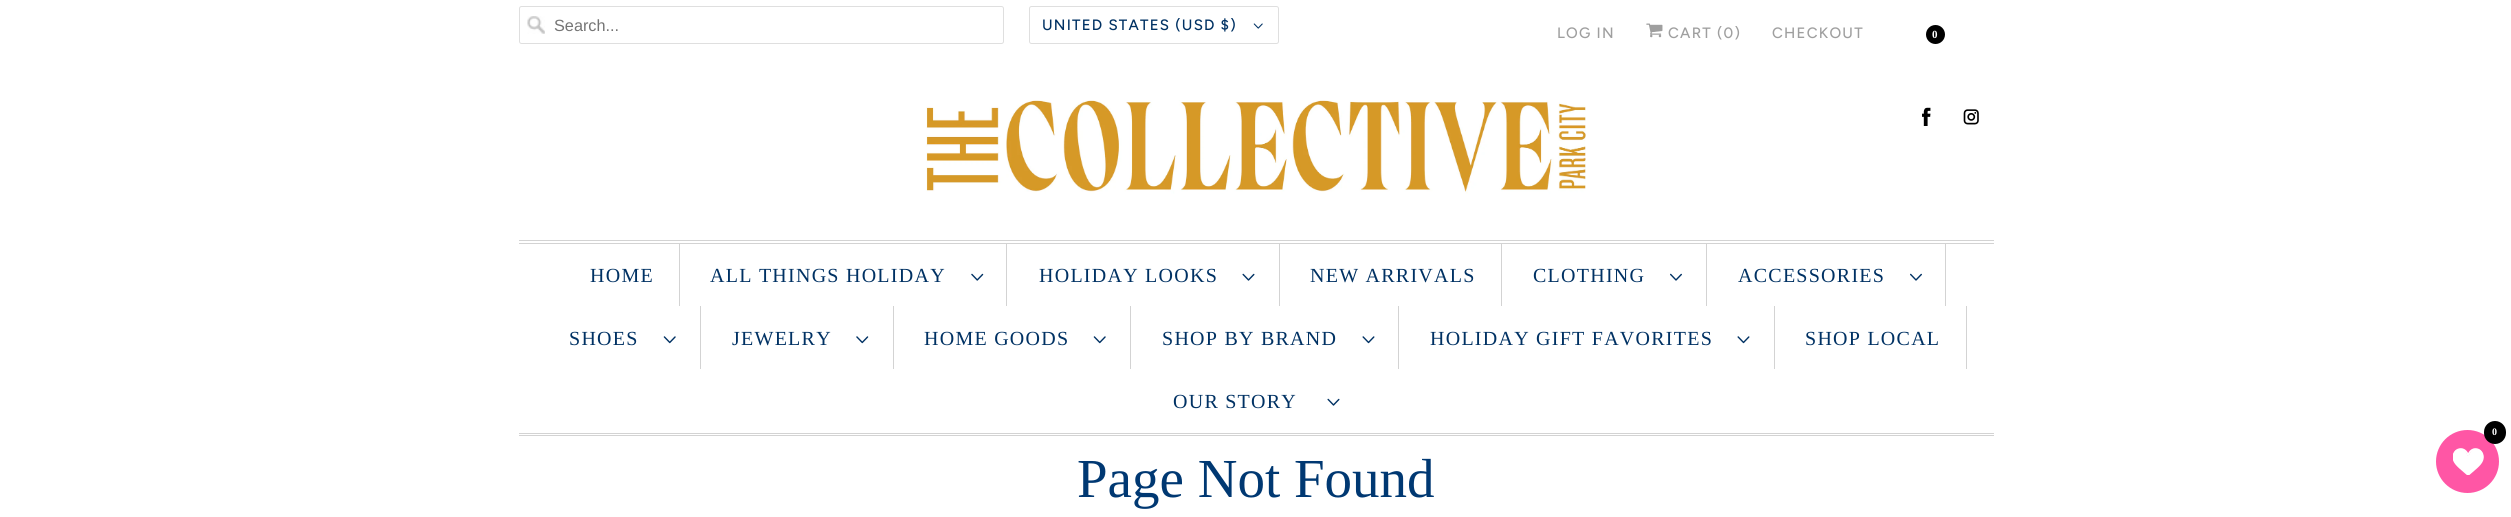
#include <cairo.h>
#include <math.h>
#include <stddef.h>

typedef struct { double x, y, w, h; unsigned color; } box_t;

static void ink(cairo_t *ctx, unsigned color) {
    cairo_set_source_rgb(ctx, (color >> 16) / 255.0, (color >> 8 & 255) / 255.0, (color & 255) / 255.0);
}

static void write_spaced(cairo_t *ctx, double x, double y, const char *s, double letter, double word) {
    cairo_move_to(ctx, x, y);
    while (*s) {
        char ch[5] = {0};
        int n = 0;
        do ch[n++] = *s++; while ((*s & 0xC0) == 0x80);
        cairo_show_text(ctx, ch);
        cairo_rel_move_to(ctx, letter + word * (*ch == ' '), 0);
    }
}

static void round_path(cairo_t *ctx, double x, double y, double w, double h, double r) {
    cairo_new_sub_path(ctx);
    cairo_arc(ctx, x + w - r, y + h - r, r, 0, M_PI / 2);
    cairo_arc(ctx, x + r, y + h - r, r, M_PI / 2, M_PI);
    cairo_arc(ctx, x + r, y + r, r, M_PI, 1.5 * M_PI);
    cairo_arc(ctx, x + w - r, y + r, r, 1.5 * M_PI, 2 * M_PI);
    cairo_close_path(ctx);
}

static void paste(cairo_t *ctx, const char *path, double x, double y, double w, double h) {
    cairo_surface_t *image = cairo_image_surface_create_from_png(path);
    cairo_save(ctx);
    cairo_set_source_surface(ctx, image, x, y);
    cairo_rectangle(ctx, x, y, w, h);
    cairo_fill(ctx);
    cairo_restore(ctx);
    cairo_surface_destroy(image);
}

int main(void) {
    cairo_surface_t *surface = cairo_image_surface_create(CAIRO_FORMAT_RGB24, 2511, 517);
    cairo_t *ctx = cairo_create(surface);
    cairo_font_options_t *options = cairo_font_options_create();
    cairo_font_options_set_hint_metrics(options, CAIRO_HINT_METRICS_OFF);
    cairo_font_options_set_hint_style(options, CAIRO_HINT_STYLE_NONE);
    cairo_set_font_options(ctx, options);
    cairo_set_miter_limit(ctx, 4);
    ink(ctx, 0xFFFFFF);
    cairo_paint(ctx);
    paste(ctx, "media/1.png", 527, 16, 18, 18);
    round_path(ctx, 519.5, 6.5, 484, 37, 2);
    ink(ctx, 0xDFDFDF);
    cairo_set_line_width(ctx, 1);
    cairo_stroke(ctx);
    cairo_select_font_face(ctx, "Liberation Sans", CAIRO_FONT_SLANT_NORMAL, CAIRO_FONT_WEIGHT_NORMAL);
    cairo_set_font_size(ctx, 16.25);
    ink(ctx, 0x757575);
    cairo_move_to(ctx, 554, 31);
    cairo_show_text(ctx, "Search...");
    round_path(ctx, 1029.5, 6.5, 249, 37, 2);
    ink(ctx, 0xDFDFDF);
    cairo_stroke(ctx);
    cairo_select_font_face(ctx, "Figtree Medium", CAIRO_FONT_SLANT_NORMAL, CAIRO_FONT_WEIGHT_NORMAL);
    cairo_set_font_size(ctx, 15);
    ink(ctx, 0x003163);
    write_spaced(ctx, 1042, 30, "UNITED STATES (USD $)", 1.25, 0);
    paste(ctx, "media/2.png", 1253, 23, 10, 6);
    ink(ctx, 0x9F9F9F);
    write_spaced(ctx, 1557, 38, "LOG IN", 1.25, 0);
    paste(ctx, "media/3.png", 1646, 23, 17, 15);
    write_spaced(ctx, 1668, 38, "CART (0)", 1.25, 0);
    write_spaced(ctx, 1772, 38, "CHECKOUT", 1.25, 0);
    ink(ctx, 0x000000);
    cairo_new_path(ctx);
    cairo_arc(ctx, 1935.5, 34.5, 9.5, 0, 2 * M_PI);
    cairo_fill(ctx);
    cairo_select_font_face(ctx, "Liberation Serif", CAIRO_FONT_SLANT_NORMAL, CAIRO_FONT_WEIGHT_BOLD);
    cairo_set_font_size(ctx, 11);
    ink(ctx, 0xFFFFFF);
    cairo_move_to(ctx, 1932, 38);
    cairo_show_text(ctx, "0");
    paste(ctx, "media/4.png", 926, 100, 660, 94);
    paste(ctx, "media/5.png", 1922, 107, 9, 19);
    paste(ctx, "media/6.png", 1963, 109, 16, 16);
    {
        static const box_t items[] = {
            {519, 240, 1475, 1, 0xD3D3D3},
            {519, 243, 1475, 1, 0xD3D3D3},
            {519, 433, 1475, 1, 0xD3D3D3},
            {519, 435, 1475, 1, 0xD3D3D3},
            {679, 244, 1, 62, 0xD3D3D3},
        };
        for (size_t i = 0; i < sizeof items / sizeof *items; i++) {
            ink(ctx, items[i].color);
            cairo_rectangle(ctx, items[i].x, items[i].y, items[i].w, items[i].h);
            cairo_fill(ctx);
        }
    }
    cairo_select_font_face(ctx, "Liberation Serif", CAIRO_FONT_SLANT_NORMAL, CAIRO_FONT_WEIGHT_NORMAL);
    cairo_set_font_size(ctx, 20);
    ink(ctx, 0x003163);
    write_spaced(ctx, 590, 282, "HOME", 1.25, 0);
    ink(ctx, 0xD3D3D3);
    cairo_rectangle(ctx, 1006, 244, 1, 62);
    cairo_fill(ctx);
    ink(ctx, 0x003163);
    write_spaced(ctx, 710, 282, "ALL THINGS HOLIDAY", 1.25, 0);
    paste(ctx, "media/7.png", 971, 273, 13, 8);
    ink(ctx, 0xD3D3D3);
    cairo_rectangle(ctx, 1279, 244, 1, 62);
    cairo_fill(ctx);
    ink(ctx, 0x003163);
    write_spaced(ctx, 1039, 282, "HOLIDAY LOOKS", 1.25, 0);
    paste(ctx, "media/8.png", 1242, 273, 13, 8);
    ink(ctx, 0xD3D3D3);
    cairo_rectangle(ctx, 1501, 244, 1, 62);
    cairo_fill(ctx);
    ink(ctx, 0x003163);
    write_spaced(ctx, 1310, 282, "NEW ARRIVALS", 1.25, 0);
    ink(ctx, 0xD3D3D3);
    cairo_rectangle(ctx, 1706, 244, 1, 62);
    cairo_fill(ctx);
    ink(ctx, 0x003163);
    write_spaced(ctx, 1533, 282, "CLOTHING", 1.25, 0);
    paste(ctx, "media/9.png", 1670, 273, 12, 8);
    ink(ctx, 0xD3D3D3);
    cairo_rectangle(ctx, 1945, 244, 1, 62);
    cairo_fill(ctx);
    ink(ctx, 0x003163);
    write_spaced(ctx, 1738, 282, "ACCESSORIES", 1.25, 0);
    paste(ctx, "media/9.png", 1910, 273, 12, 8);
    ink(ctx, 0xD3D3D3);
    cairo_rectangle(ctx, 700, 306, 1, 63);
    cairo_fill(ctx);
    ink(ctx, 0x003163);
    write_spaced(ctx, 569, 345, "SHOES", 1.25, 0);
    paste(ctx, "media/10.png", 663, 336, 13, 8);
    ink(ctx, 0xD3D3D3);
    cairo_rectangle(ctx, 893, 306, 1, 63);
    cairo_fill(ctx);
    ink(ctx, 0x003163);
    write_spaced(ctx, 732, 345, "JEWELRY", 1.25, 0);
    paste(ctx, "media/11.png", 856, 336, 13, 8);
    ink(ctx, 0xD3D3D3);
    cairo_rectangle(ctx, 1130, 306, 1, 63);
    cairo_fill(ctx);
    ink(ctx, 0x003163);
    write_spaced(ctx, 924, 345, "HOME GOODS", 1.25, 0);
    paste(ctx, "media/10.png", 1093, 336, 13, 8);
    ink(ctx, 0xD3D3D3);
    cairo_rectangle(ctx, 1398, 306, 1, 63);
    cairo_fill(ctx);
    ink(ctx, 0x003163);
    write_spaced(ctx, 1162, 345, "SHOP BY BRAND", 1.25, 0);
    paste(ctx, "media/12.png", 1362, 336, 13, 8);
    ink(ctx, 0xD3D3D3);
    cairo_rectangle(ctx, 1774, 306, 1, 63);
    cairo_fill(ctx);
    ink(ctx, 0x003163);
    write_spaced(ctx, 1430, 345, "HOLIDAY GIFT FAVORITES", 1.25, 0);
    paste(ctx, "media/12.png", 1737, 336, 13, 8);
    ink(ctx, 0xD3D3D3);
    cairo_rectangle(ctx, 1966, 306, 1, 63);
    cairo_fill(ctx);
    ink(ctx, 0x003163);
    write_spaced(ctx, 1805, 345, "SHOP LOCAL", 1.25, 0);
    write_spaced(ctx, 1173, 408, "OUR STORY", 1.25, 0);
    paste(ctx, "media/8.png", 1327, 398, 13, 8);
    ink(ctx, 0xFF56A5);
    cairo_arc(ctx, 2467.5, 461.5, 31.5, 0, 2 * M_PI);
    cairo_fill(ctx);
    ink(ctx, 0x000000);
    round_path(ctx, 2484, 421, 22, 23, 11);
    cairo_fill(ctx);
    cairo_select_font_face(ctx, "Liberation Serif", CAIRO_FONT_SLANT_NORMAL, CAIRO_FONT_WEIGHT_BOLD);
    cairo_set_font_size(ctx, 10);
    ink(ctx, 0xFFFFFF);
    cairo_move_to(ctx, 2492, 435);
    cairo_show_text(ctx, "0");
    paste(ctx, "media/13.png", 2453, 448, 31, 27);
    cairo_select_font_face(ctx, "Liberation Serif", CAIRO_FONT_SLANT_NORMAL, CAIRO_FONT_WEIGHT_NORMAL);
    cairo_set_font_size(ctx, 55);
    ink(ctx, 0x003872);
    cairo_move_to(ctx, 1077, 497);
    cairo_show_text(ctx, "Page Not Found");
    cairo_surface_write_to_png(surface, "image.png");
    cairo_font_options_destroy(options);
    cairo_destroy(ctx);
    cairo_surface_destroy(surface);
    return 0;
}
